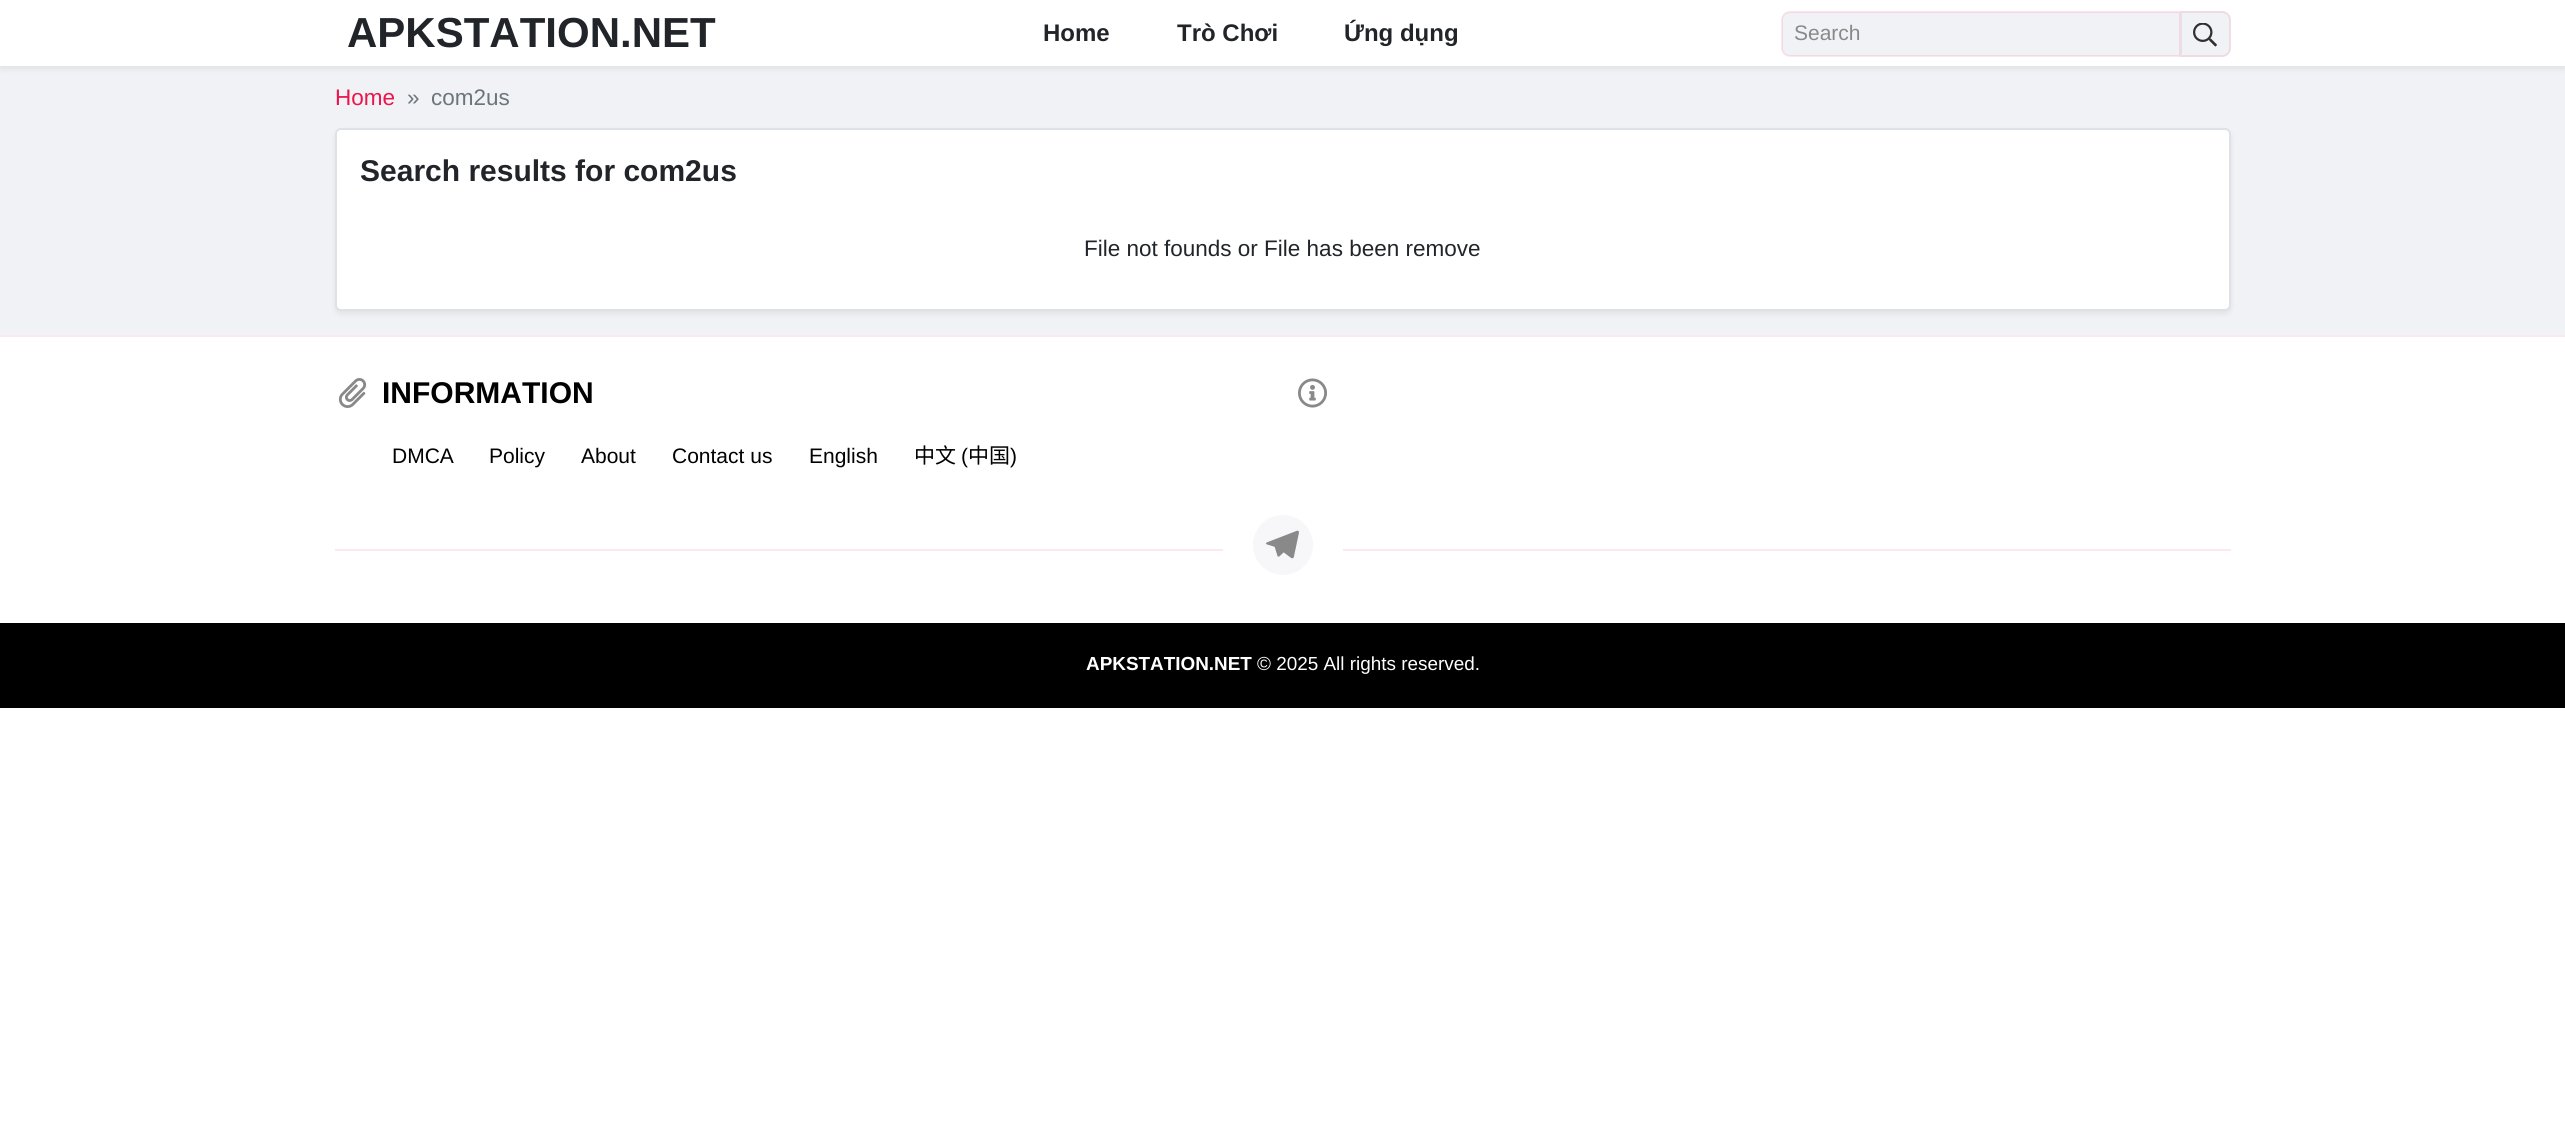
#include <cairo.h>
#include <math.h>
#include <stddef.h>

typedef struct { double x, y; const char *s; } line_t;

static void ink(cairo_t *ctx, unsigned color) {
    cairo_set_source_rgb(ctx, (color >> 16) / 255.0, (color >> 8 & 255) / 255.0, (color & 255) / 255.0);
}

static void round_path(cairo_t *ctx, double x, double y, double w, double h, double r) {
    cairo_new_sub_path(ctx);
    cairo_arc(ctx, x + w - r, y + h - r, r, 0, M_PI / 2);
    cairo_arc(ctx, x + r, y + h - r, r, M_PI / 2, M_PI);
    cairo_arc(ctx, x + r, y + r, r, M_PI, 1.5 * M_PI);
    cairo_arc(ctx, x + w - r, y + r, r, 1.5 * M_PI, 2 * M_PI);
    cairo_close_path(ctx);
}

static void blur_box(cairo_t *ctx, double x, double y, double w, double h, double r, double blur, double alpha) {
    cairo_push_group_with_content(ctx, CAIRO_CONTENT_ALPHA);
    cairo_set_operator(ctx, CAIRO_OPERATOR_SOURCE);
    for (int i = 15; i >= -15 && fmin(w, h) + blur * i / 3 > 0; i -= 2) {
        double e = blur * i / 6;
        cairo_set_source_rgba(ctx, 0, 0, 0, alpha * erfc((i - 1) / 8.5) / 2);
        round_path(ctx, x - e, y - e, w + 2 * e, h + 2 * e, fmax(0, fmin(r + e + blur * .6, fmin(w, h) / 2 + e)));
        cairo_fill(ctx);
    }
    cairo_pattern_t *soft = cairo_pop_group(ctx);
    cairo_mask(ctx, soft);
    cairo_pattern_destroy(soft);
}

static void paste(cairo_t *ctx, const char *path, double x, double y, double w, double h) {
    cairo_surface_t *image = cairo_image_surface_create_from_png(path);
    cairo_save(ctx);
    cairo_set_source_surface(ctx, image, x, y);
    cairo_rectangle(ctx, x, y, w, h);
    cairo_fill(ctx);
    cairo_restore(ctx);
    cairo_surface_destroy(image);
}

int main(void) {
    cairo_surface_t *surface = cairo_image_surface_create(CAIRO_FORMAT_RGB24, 2565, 1123);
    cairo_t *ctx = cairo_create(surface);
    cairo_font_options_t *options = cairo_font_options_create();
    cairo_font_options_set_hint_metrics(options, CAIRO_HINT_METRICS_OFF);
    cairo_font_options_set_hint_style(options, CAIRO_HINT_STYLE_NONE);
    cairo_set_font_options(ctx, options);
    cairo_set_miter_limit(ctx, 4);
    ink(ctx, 0xFFFFFF);
    cairo_paint(ctx);
    ink(ctx, 0xF0F2F5);
    cairo_rectangle(ctx, 0, 66, 2565, 269);
    cairo_fill(ctx);
    ink(ctx, 0x000000);
    blur_box(ctx, 0, 3, 2565, 66, 0, 3, 0.07);
    ink(ctx, 0xFFFFFF);
    cairo_rectangle(ctx, 0, 0, 2565, 66);
    cairo_fill(ctx);
    cairo_select_font_face(ctx, "Liberation Sans", CAIRO_FONT_SLANT_NORMAL, CAIRO_FONT_WEIGHT_BOLD);
    cairo_set_font_size(ctx, 42);
    ink(ctx, 0x212529);
    cairo_move_to(ctx, 347, 47);
    cairo_show_text(ctx, "APKSTATION.NET");
    cairo_set_font_size(ctx, 24);
    {
        static const line_t items[] = {
            {1043, 41, "Home"},
            {1177, 41, "Trò Chơi"},
            {1344, 41, "Ứng dụng"},
        };
        for (size_t i = 0; i < sizeof items / sizeof *items; i++) {
            cairo_move_to(ctx, items[i].x, items[i].y);
            cairo_show_text(ctx, items[i].s);
        }
    }
    ink(ctx, 0xF0F2F5);
    cairo_new_path(ctx);
    cairo_move_to(ctx, 1790, 12);
    cairo_line_to(ctx, 2180, 12);
    cairo_line_to(ctx, 2180, 56);
    cairo_line_to(ctx, 1790, 56);
    cairo_curve_to(ctx, 1785.5, 56, 1782, 52.5, 1782, 48);
    cairo_line_to(ctx, 1782, 20);
    cairo_curve_to(ctx, 1782, 15.5, 1785.5, 12, 1790, 12);
    cairo_close_path(ctx);
    cairo_fill(ctx);
    cairo_new_path(ctx);
    cairo_move_to(ctx, 1790, 12);
    cairo_line_to(ctx, 2180, 12);
    cairo_line_to(ctx, 2180, 56);
    cairo_line_to(ctx, 1790, 56);
    cairo_curve_to(ctx, 1785.5, 56, 1782, 52.5, 1782, 48);
    cairo_line_to(ctx, 1782, 20);
    cairo_curve_to(ctx, 1782, 15.5, 1785.5, 12, 1790, 12);
    cairo_close_path(ctx);
    cairo_set_source_rgba(ctx, 0.922, 0.078, 0.298, 0.1);
    cairo_stroke(ctx);
    cairo_select_font_face(ctx, "Liberation Sans", CAIRO_FONT_SLANT_NORMAL, CAIRO_FONT_WEIGHT_NORMAL);
    cairo_set_font_size(ctx, 21);
    ink(ctx, 0x898989);
    cairo_move_to(ctx, 1794, 40);
    cairo_show_text(ctx, "Search");
    ink(ctx, 0xF0F2F5);
    cairo_new_path(ctx);
    cairo_move_to(ctx, 2180, 11);
    cairo_line_to(ctx, 2222, 11);
    cairo_curve_to(ctx, 2227, 11, 2231, 15, 2231, 20);
    cairo_line_to(ctx, 2231, 48);
    cairo_curve_to(ctx, 2231, 53, 2227, 57, 2222, 57);
    cairo_line_to(ctx, 2180, 57);
    cairo_close_path(ctx);
    cairo_fill(ctx);
    cairo_new_path(ctx);
    cairo_move_to(ctx, 2181, 12);
    cairo_line_to(ctx, 2222, 12);
    cairo_curve_to(ctx, 2226.5, 12, 2230, 15.5, 2230, 20);
    cairo_line_to(ctx, 2230, 48);
    cairo_curve_to(ctx, 2230, 52.5, 2226.5, 56, 2222, 56);
    cairo_line_to(ctx, 2181, 56);
    cairo_close_path(ctx);
    cairo_set_source_rgba(ctx, 0.922, 0.078, 0.298, 0.1);
    cairo_stroke(ctx);
    paste(ctx, "media/1.png", 2193, 23, 24, 24);
    cairo_set_font_size(ctx, 22.5);
    ink(ctx, 0xEB144C);
    cairo_move_to(ctx, 335, 105);
    cairo_show_text(ctx, "Home");
    ink(ctx, 0x6C757D);
    cairo_move_to(ctx, 407, 105);
    cairo_show_text(ctx, "»");
    cairo_move_to(ctx, 431, 105);
    cairo_show_text(ctx, "com2us");
    ink(ctx, 0x000000);
    blur_box(ctx, 335, 131, 1896, 183, 6, 3, 0.07);
    ink(ctx, 0xFFFFFF);
    round_path(ctx, 336, 129, 1894, 181, 5);
    cairo_fill_preserve(ctx);
    ink(ctx, 0xDEE2E6);
    cairo_stroke(ctx);
    cairo_select_font_face(ctx, "Liberation Sans", CAIRO_FONT_SLANT_NORMAL, CAIRO_FONT_WEIGHT_BOLD);
    cairo_set_font_size(ctx, 30);
    ink(ctx, 0x212529);
    cairo_move_to(ctx, 360, 181);
    cairo_show_text(ctx, "Search results for com2us");
    cairo_select_font_face(ctx, "Liberation Sans", CAIRO_FONT_SLANT_NORMAL, CAIRO_FONT_WEIGHT_NORMAL);
    cairo_set_font_size(ctx, 22.5);
    cairo_move_to(ctx, 1084, 256);
    cairo_show_text(ctx, "File not founds or File has been remove");
    ink(ctx, 0xFDE8ED);
    cairo_rectangle(ctx, 0, 335, 2565, 2);
    cairo_fill(ctx);
    paste(ctx, "media/2.png", 338, 378, 29, 30);
    cairo_select_font_face(ctx, "Liberation Sans", CAIRO_FONT_SLANT_NORMAL, CAIRO_FONT_WEIGHT_BOLD);
    cairo_set_font_size(ctx, 30);
    ink(ctx, 0x000000);
    cairo_move_to(ctx, 382, 403);
    cairo_show_text(ctx, "INFORMATION");
    cairo_select_font_face(ctx, "Liberation Sans", CAIRO_FONT_SLANT_NORMAL, CAIRO_FONT_WEIGHT_NORMAL);
    cairo_set_font_size(ctx, 21);
    {
        static const line_t items[] = {
            {392, 463, "DMCA"},
            {489, 463, "Policy"},
            {581, 463, "About"},
            {672, 463, "Contact us"},
            {809, 463, "English"},
        };
        for (size_t i = 0; i < sizeof items / sizeof *items; i++) {
            cairo_move_to(ctx, items[i].x, items[i].y);
            cairo_show_text(ctx, items[i].s);
        }
    }
    cairo_select_font_face(ctx, "Noto Sans CJK SC", CAIRO_FONT_SLANT_NORMAL, CAIRO_FONT_WEIGHT_NORMAL);
    cairo_move_to(ctx, 914, 463);
    cairo_show_text(ctx, "中文");
    cairo_select_font_face(ctx, "Liberation Sans", CAIRO_FONT_SLANT_NORMAL, CAIRO_FONT_WEIGHT_NORMAL);
    cairo_move_to(ctx, 961, 463);
    cairo_show_text(ctx, "(");
    cairo_select_font_face(ctx, "Noto Sans CJK SC", CAIRO_FONT_SLANT_NORMAL, CAIRO_FONT_WEIGHT_NORMAL);
    cairo_move_to(ctx, 968, 463);
    cairo_show_text(ctx, "中国");
    cairo_select_font_face(ctx, "Liberation Sans", CAIRO_FONT_SLANT_NORMAL, CAIRO_FONT_WEIGHT_NORMAL);
    cairo_move_to(ctx, 1010, 463);
    cairo_show_text(ctx, ")");
    paste(ctx, "media/3.png", 1298, 378, 29, 30);
    ink(ctx, 0xFDE8ED);
    cairo_rectangle(ctx, 335, 549, 888, 2);
    cairo_fill(ctx);
    ink(ctx, 0xF7F7FA);
    cairo_arc(ctx, 1283, 545, 30, 0, 2 * M_PI);
    cairo_fill(ctx);
    paste(ctx, "media/4.png", 1266, 530, 33, 29);
    ink(ctx, 0xFDE8ED);
    cairo_rectangle(ctx, 1343, 549, 888, 2);
    cairo_fill(ctx);
    ink(ctx, 0x000000);
    cairo_rectangle(ctx, 0, 623, 2565, 85);
    cairo_fill(ctx);
    cairo_select_font_face(ctx, "Liberation Sans", CAIRO_FONT_SLANT_NORMAL, CAIRO_FONT_WEIGHT_BOLD);
    cairo_set_font_size(ctx, 18.9);
    ink(ctx, 0xFFFFFF);
    cairo_move_to(ctx, 1086, 670);
    cairo_show_text(ctx, "APKSTATION.NET");
    cairo_select_font_face(ctx, "Liberation Sans", CAIRO_FONT_SLANT_NORMAL, CAIRO_FONT_WEIGHT_NORMAL);
    cairo_move_to(ctx, 1257, 670);
    cairo_show_text(ctx, "© 2025 All rights reserved.");
    cairo_surface_write_to_png(surface, "image.png");
    cairo_font_options_destroy(options);
    cairo_destroy(ctx);
    cairo_surface_destroy(surface);
    return 0;
}
